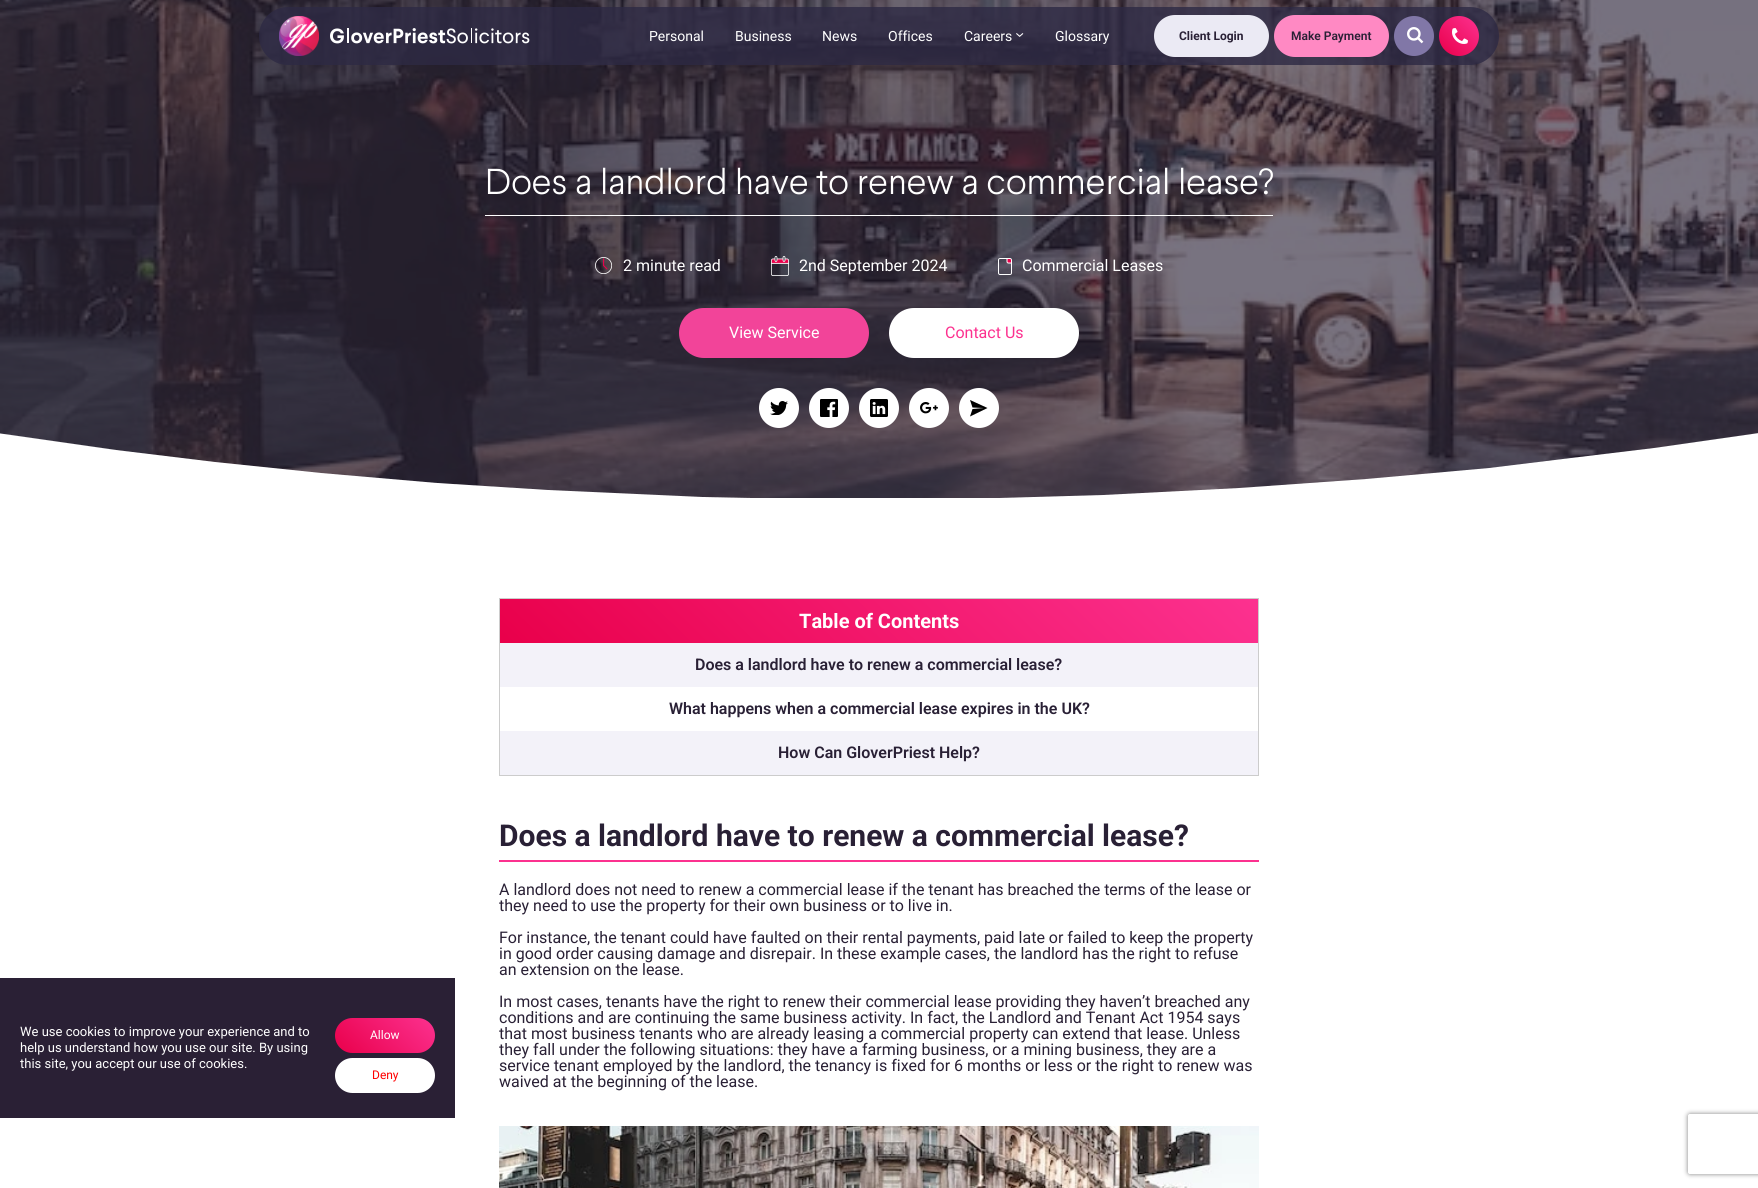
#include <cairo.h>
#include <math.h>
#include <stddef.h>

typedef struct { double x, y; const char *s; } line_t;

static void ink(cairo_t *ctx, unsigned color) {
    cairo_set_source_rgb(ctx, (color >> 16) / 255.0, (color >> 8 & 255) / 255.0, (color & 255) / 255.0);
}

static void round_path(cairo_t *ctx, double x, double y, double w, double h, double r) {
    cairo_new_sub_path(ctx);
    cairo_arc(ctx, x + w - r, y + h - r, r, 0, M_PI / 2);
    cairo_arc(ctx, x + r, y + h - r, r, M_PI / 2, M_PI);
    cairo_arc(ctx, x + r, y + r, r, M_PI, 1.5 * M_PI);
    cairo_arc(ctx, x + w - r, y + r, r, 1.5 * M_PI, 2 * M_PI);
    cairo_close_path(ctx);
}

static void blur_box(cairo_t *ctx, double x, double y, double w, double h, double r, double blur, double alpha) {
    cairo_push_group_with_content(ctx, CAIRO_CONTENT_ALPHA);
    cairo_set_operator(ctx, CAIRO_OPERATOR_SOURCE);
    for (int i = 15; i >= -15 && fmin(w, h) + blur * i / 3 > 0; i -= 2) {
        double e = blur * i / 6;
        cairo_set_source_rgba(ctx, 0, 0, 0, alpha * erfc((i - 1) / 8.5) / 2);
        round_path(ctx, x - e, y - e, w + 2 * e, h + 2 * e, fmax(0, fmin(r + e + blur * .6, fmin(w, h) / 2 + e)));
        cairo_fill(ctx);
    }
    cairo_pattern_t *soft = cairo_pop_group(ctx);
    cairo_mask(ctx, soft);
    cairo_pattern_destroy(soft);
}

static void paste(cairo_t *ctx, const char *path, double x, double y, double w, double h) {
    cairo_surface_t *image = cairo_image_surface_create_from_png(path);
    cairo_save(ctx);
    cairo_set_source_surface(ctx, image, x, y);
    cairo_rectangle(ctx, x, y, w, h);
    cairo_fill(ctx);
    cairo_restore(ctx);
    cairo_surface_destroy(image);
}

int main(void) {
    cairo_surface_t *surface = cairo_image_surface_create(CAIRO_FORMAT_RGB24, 1758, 1188);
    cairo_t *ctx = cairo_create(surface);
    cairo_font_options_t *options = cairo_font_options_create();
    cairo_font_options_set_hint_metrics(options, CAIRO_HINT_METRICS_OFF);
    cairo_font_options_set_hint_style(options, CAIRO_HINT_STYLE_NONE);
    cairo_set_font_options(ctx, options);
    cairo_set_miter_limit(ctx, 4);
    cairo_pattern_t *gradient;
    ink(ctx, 0xFFFFFF);
    cairo_paint(ctx);
    paste(ctx, "media/6.png", 0, 0, 1758, 498);
    cairo_set_source_rgba(ctx, 0.176, 0.165, 0.267, 0.8);
    round_path(ctx, 259, 7, 1240, 58, 29);
    cairo_fill(ctx);
    paste(ctx, "media/1.png", 279, 16, 40, 40);
    paste(ctx, "media/2.png", 330, 28, 200, 16);
    cairo_select_font_face(ctx, "Roboto", CAIRO_FONT_SLANT_NORMAL, CAIRO_FONT_WEIGHT_NORMAL);
    cairo_set_font_size(ctx, 14);
    ink(ctx, 0xFFFFFF);
    {
        static const line_t items[] = {
            {649, 41, "Personal"},
            {735, 41, "Business"},
            {822, 41, "News"},
            {888, 41, "Offices"},
            {964, 41, "Careers"},
        };
        for (size_t i = 0; i < sizeof items / sizeof *items; i++) {
            cairo_move_to(ctx, items[i].x, items[i].y);
            cairo_show_text(ctx, items[i].s);
        }
    }
    paste(ctx, "media/3.png", 1016, 33, 8, 4);
    cairo_move_to(ctx, 1055, 41);
    cairo_show_text(ctx, "Glossary");
    ink(ctx, 0xEBEAF4);
    round_path(ctx, 1154, 15, 115, 42, 21);
    cairo_fill(ctx);
    cairo_select_font_face(ctx, "Roboto", CAIRO_FONT_SLANT_NORMAL, CAIRO_FONT_WEIGHT_BOLD);
    cairo_set_font_size(ctx, 12);
    ink(ctx, 0x292035);
    cairo_move_to(ctx, 1179, 40);
    cairo_show_text(ctx, "Client Login");
    ink(ctx, 0xFF89C3);
    round_path(ctx, 1274, 15, 115, 42, 21);
    cairo_fill(ctx);
    cairo_select_font_face(ctx, "Roboto SemiBold", CAIRO_FONT_SLANT_NORMAL, CAIRO_FONT_WEIGHT_NORMAL);
    ink(ctx, 0x292035);
    cairo_move_to(ctx, 1291, 40);
    cairo_show_text(ctx, "Make Payment");
    ink(ctx, 0x8177A7);
    cairo_new_path(ctx);
    cairo_arc(ctx, 1414, 36, 20, 0, 2 * M_PI);
    cairo_fill(ctx);
    paste(ctx, "media/4.png", 1407, 27, 17, 17);
    gradient = cairo_pattern_create_linear(1439, 56, 1479, 16);
    cairo_pattern_add_color_stop_rgba(gradient, 0.01, 0.914, 0, 0.294, 1);
    cairo_pattern_add_color_stop_rgba(gradient, 0.99, 0.988, 0.192, 0.561, 1);
    cairo_set_source(ctx, gradient);
    cairo_pattern_destroy(gradient);
    cairo_arc(ctx, 1459, 36, 20, 0, 2 * M_PI);
    cairo_fill(ctx);
    paste(ctx, "media/5.png", 1452, 28, 16, 16);
    ink(ctx, 0xFFFFFF);
    cairo_rectangle(ctx, 485, 215, 788, 1);
    cairo_fill(ctx);
    cairo_select_font_face(ctx, "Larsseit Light", CAIRO_FONT_SLANT_NORMAL, CAIRO_FONT_WEIGHT_NORMAL);
    cairo_set_font_size(ctx, 36);
    cairo_move_to(ctx, 485, 194);
    cairo_show_text(ctx, "Does a landlord have to renew a commercial lease?");
    paste(ctx, "media/7.png", 595, 257, 17, 17);
    cairo_select_font_face(ctx, "Roboto", CAIRO_FONT_SLANT_NORMAL, CAIRO_FONT_WEIGHT_NORMAL);
    cairo_set_font_size(ctx, 16);
    cairo_move_to(ctx, 623, 271);
    cairo_show_text(ctx, "2 minute read");
    paste(ctx, "media/8.png", 771, 256, 18, 20);
    cairo_move_to(ctx, 799, 271);
    cairo_show_text(ctx, "2nd September 2024");
    paste(ctx, "media/9.png", 998, 258, 14, 17);
    cairo_move_to(ctx, 1022, 271);
    cairo_show_text(ctx, "Commercial Leases");
    ink(ctx, 0xF24499);
    round_path(ctx, 679, 308, 190, 50, 25);
    cairo_fill(ctx);
    ink(ctx, 0xFFFFFF);
    cairo_move_to(ctx, 729, 338);
    cairo_show_text(ctx, "View Service");
    round_path(ctx, 889, 308, 190, 50, 25);
    cairo_fill(ctx);
    ink(ctx, 0xFC318F);
    cairo_move_to(ctx, 945, 338);
    cairo_show_text(ctx, "Contact Us");
    ink(ctx, 0xFFFFFF);
    cairo_new_path(ctx);
    cairo_arc(ctx, 779, 408, 20, 0, 2 * M_PI);
    cairo_fill(ctx);
    paste(ctx, "media/10.png", 770, 401, 18, 14);
    cairo_arc(ctx, 829, 408, 20, 0, 2 * M_PI);
    cairo_fill(ctx);
    paste(ctx, "media/11.png", 820, 399, 18, 18);
    cairo_arc(ctx, 879, 408, 20, 0, 2 * M_PI);
    cairo_fill(ctx);
    paste(ctx, "media/12.png", 870, 399, 18, 18);
    cairo_arc(ctx, 929, 408, 20, 0, 2 * M_PI);
    cairo_fill(ctx);
    paste(ctx, "media/13.png", 920, 402, 18, 12);
    cairo_arc(ctx, 979, 408, 20, 0, 2 * M_PI);
    cairo_fill(ctx);
    gradient = cairo_pattern_create_linear(972, 421, 992, 416);
    cairo_pattern_add_color_stop_rgba(gradient, 0, 0, 0, 0, 1);
    cairo_pattern_add_color_stop_rgba(gradient, 1, 0, 0, 0, 1);
    cairo_set_source(ctx, gradient);
    cairo_pattern_destroy(gradient);
    cairo_new_path(ctx);
    cairo_move_to(ctx, 987.5, 408);
    cairo_line_to(ctx, 970, 400);
    cairo_line_to(ctx, 972.5, 407.5);
    cairo_line_to(ctx, 983.5, 408);
    cairo_line_to(ctx, 972.5, 409);
    cairo_line_to(ctx, 970, 416.5);
    cairo_close_path(ctx);
    cairo_fill(ctx);
    ink(ctx, 0xFFFFFF);
    cairo_new_path(ctx);
    cairo_move_to(ctx, -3, 433);
    cairo_line_to(ctx, 116, 450);
    cairo_line_to(ctx, 215, 462);
    cairo_line_to(ctx, 321, 473);
    cairo_line_to(ctx, 437, 483);
    cairo_line_to(ctx, 548, 490);
    cairo_line_to(ctx, 702, 497);
    cairo_line_to(ctx, 798, 499);
    cairo_line_to(ctx, 880, 499);
    cairo_line_to(ctx, 998, 498);
    cairo_line_to(ctx, 1103, 495);
    cairo_line_to(ctx, 1239, 488);
    cairo_line_to(ctx, 1366, 479);
    cairo_line_to(ctx, 1489, 468);
    cairo_line_to(ctx, 1571, 458);
    cairo_line_to(ctx, 1654, 448);
    cairo_line_to(ctx, 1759, 433);
    cairo_line_to(ctx, 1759, 499);
    cairo_line_to(ctx, -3, 499);
    cairo_close_path(ctx);
    cairo_fill(ctx);
    ink(ctx, 0x2A2035);
    cairo_rectangle(ctx, 0, 978, 455, 140);
    cairo_fill(ctx);
    cairo_set_font_size(ctx, 13);
    ink(ctx, 0xFFFFFF);
    {
        static const line_t items[] = {
            {20, 1036, "We use cookies to improve your experience and to"},
            {20, 1052, "help us understand how you use our site. By using"},
            {20, 1068, "this site, you accept our use of cookies."},
        };
        for (size_t i = 0; i < sizeof items / sizeof *items; i++) {
            cairo_move_to(ctx, items[i].x, items[i].y);
            cairo_show_text(ctx, items[i].s);
        }
    }
    gradient = cairo_pattern_create_linear(352, 1070, 418, 1001);
    cairo_pattern_add_color_stop_rgba(gradient, 0.01, 0.914, 0, 0.294, 1);
    cairo_pattern_add_color_stop_rgba(gradient, 0.99, 0.988, 0.192, 0.561, 1);
    cairo_set_source(ctx, gradient);
    cairo_pattern_destroy(gradient);
    round_path(ctx, 335, 1018, 100, 35, 17.5);
    cairo_fill(ctx);
    cairo_set_font_size(ctx, 12);
    ink(ctx, 0xFFFFFF);
    cairo_move_to(ctx, 370, 1039);
    cairo_show_text(ctx, "Allow");
    round_path(ctx, 335, 1058, 100, 35, 17.5);
    cairo_fill(ctx);
    ink(ctx, 0xFF0000);
    cairo_move_to(ctx, 372, 1079);
    cairo_show_text(ctx, "Deny");
    cairo_rectangle(ctx, 499.5, 598.5, 759, 177);
    ink(ctx, 0xCCCCCC);
    cairo_set_line_width(ctx, 1);
    cairo_stroke(ctx);
    gradient = cairo_pattern_create_linear(685, 822, 1073, 420);
    cairo_pattern_add_color_stop_rgba(gradient, 0.01, 0.914, 0, 0.294, 1);
    cairo_pattern_add_color_stop_rgba(gradient, 0.99, 0.988, 0.192, 0.561, 1);
    cairo_set_source(ctx, gradient);
    cairo_pattern_destroy(gradient);
    cairo_rectangle(ctx, 500, 599, 758, 44);
    cairo_fill(ctx);
    cairo_select_font_face(ctx, "Roboto", CAIRO_FONT_SLANT_NORMAL, CAIRO_FONT_WEIGHT_BOLD);
    cairo_set_font_size(ctx, 20);
    ink(ctx, 0xFFFFFF);
    cairo_move_to(ctx, 799, 628);
    cairo_show_text(ctx, "Table of Contents");
    ink(ctx, 0xF3F2F9);
    cairo_rectangle(ctx, 500, 643, 758, 44);
    cairo_fill(ctx);
    cairo_select_font_face(ctx, "Roboto SemiBold", CAIRO_FONT_SLANT_NORMAL, CAIRO_FONT_WEIGHT_NORMAL);
    cairo_set_font_size(ctx, 16);
    ink(ctx, 0x292035);
    cairo_move_to(ctx, 695, 670);
    cairo_show_text(ctx, "Does a landlord have to renew a commercial lease?");
    cairo_move_to(ctx, 669, 714);
    cairo_show_text(ctx, "What happens when a commercial lease expires in the UK?");
    ink(ctx, 0xF3F2F9);
    cairo_rectangle(ctx, 500, 731, 758, 44);
    cairo_fill(ctx);
    ink(ctx, 0x292035);
    cairo_move_to(ctx, 778, 758);
    cairo_show_text(ctx, "How Can GloverPriest Help?");
    ink(ctx, 0xFC318F);
    cairo_rectangle(ctx, 499, 860, 760, 2);
    cairo_fill(ctx);
    cairo_select_font_face(ctx, "Roboto", CAIRO_FONT_SLANT_NORMAL, CAIRO_FONT_WEIGHT_BOLD);
    cairo_set_font_size(ctx, 30);
    ink(ctx, 0x292035);
    cairo_move_to(ctx, 499, 846);
    cairo_show_text(ctx, "Does a landlord have to renew a commercial lease?");
    cairo_select_font_face(ctx, "Roboto", CAIRO_FONT_SLANT_NORMAL, CAIRO_FONT_WEIGHT_NORMAL);
    cairo_set_font_size(ctx, 16);
    {
        static const line_t items[] = {
            {499, 895, "A landlord does not need to renew a commercial lease if the tenant has breached the terms of the lease or"},
            {499, 911, "they need to use the property for their own business or to live in."},
            {499, 943, "For instance, the tenant could have faulted on their rental payments, paid late or failed to keep the property"},
            {499, 959, "in good order causing damage and disrepair. In these example cases, the landlord has the right to refuse"},
            {499, 975, "an extension on the lease."},
            {499, 1007, "In most cases, tenants have the right to renew their commercial lease providing they haven’t breached any"},
            {499, 1023, "conditions and are continuing the same business activity. In fact, the Landlord and Tenant Act 1954 says"},
            {499, 1039, "that most business tenants who are already leasing a commercial property can extend that lease. Unless"},
            {499, 1055, "they fall under the following situations: they have a farming business, or a mining business, they are a"},
            {499, 1071, "service tenant employed by the landlord, the tenancy is fixed for 6 months or less or the right to renew was"},
            {499, 1087, "waived at the beginning of the lease."},
        };
        for (size_t i = 0; i < sizeof items / sizeof *items; i++) {
            cairo_move_to(ctx, items[i].x, items[i].y);
            cairo_show_text(ctx, items[i].s);
        }
    }
    paste(ctx, "media/14.png", 499, 1126, 760, 62);
    cairo_save(ctx);
    cairo_set_fill_rule(ctx, CAIRO_FILL_RULE_EVEN_ODD);
    cairo_new_path(ctx);
    cairo_move_to(ctx, 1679, 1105);
    cairo_line_to(ctx, 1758, 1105);
    cairo_line_to(ctx, 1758, 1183);
    cairo_line_to(ctx, 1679, 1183);
    cairo_close_path(ctx);
    cairo_move_to(ctx, 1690, 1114);
    cairo_line_to(ctx, 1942, 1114);
    cairo_curve_to(ctx, 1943, 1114, 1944, 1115, 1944, 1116);
    cairo_line_to(ctx, 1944, 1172);
    cairo_curve_to(ctx, 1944, 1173, 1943, 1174, 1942, 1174);
    cairo_line_to(ctx, 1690, 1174);
    cairo_curve_to(ctx, 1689, 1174, 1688, 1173, 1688, 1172);
    cairo_line_to(ctx, 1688, 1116);
    cairo_curve_to(ctx, 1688, 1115, 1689, 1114, 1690, 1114);
    cairo_close_path(ctx);
    cairo_clip(ctx);
    ink(ctx, 0x808080);
    blur_box(ctx, 1688, 1114, 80, 60, 2, 2.5, 1);
    cairo_restore(ctx);
    cairo_surface_write_to_png(surface, "image.png");
    cairo_font_options_destroy(options);
    cairo_destroy(ctx);
    cairo_surface_destroy(surface);
    return 0;
}
